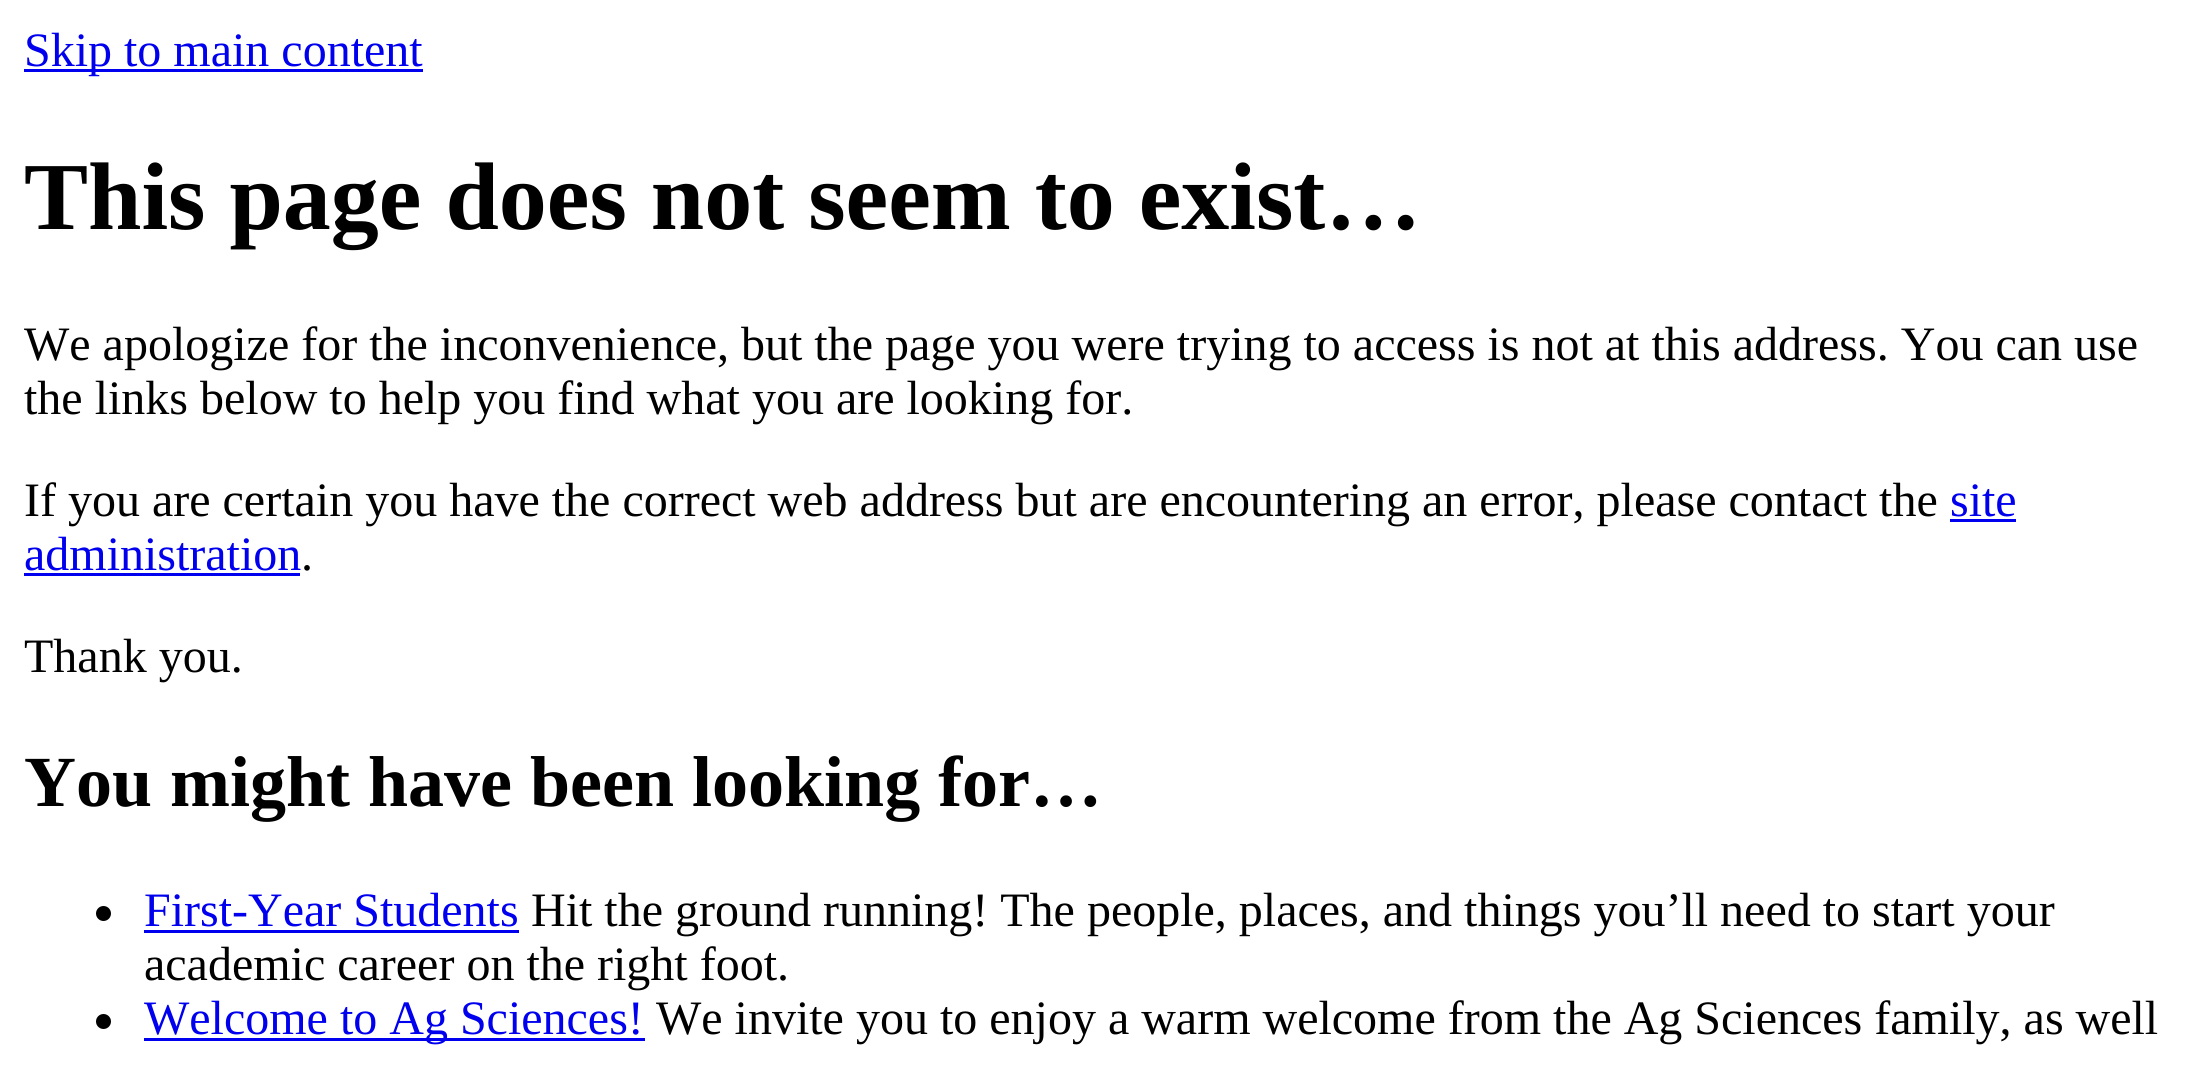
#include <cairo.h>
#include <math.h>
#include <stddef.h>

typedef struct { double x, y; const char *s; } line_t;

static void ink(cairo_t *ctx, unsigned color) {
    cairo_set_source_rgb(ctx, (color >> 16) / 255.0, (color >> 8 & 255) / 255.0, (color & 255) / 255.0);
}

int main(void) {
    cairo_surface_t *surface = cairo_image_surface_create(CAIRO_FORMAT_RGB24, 2205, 1073);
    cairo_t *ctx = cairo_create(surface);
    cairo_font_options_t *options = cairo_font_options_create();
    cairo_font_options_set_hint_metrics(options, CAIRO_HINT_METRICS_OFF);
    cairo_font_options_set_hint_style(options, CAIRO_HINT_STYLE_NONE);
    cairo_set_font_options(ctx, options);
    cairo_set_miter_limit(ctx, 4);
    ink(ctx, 0xFFFFFF);
    cairo_paint(ctx);
    ink(ctx, 0x0000EE);
    cairo_rectangle(ctx, 24, 69, 399, 3);
    cairo_fill(ctx);
    cairo_select_font_face(ctx, "Liberation Serif", CAIRO_FONT_SLANT_NORMAL, CAIRO_FONT_WEIGHT_NORMAL);
    cairo_set_font_size(ctx, 48);
    cairo_move_to(ctx, 24, 66);
    cairo_show_text(ctx, "Skip to main content");
    cairo_select_font_face(ctx, "Liberation Serif", CAIRO_FONT_SLANT_NORMAL, CAIRO_FONT_WEIGHT_BOLD);
    cairo_set_font_size(ctx, 96);
    ink(ctx, 0x000000);
    cairo_move_to(ctx, 24, 229);
    cairo_show_text(ctx, "This page does not seem to exist…");
    cairo_select_font_face(ctx, "Liberation Serif", CAIRO_FONT_SLANT_NORMAL, CAIRO_FONT_WEIGHT_NORMAL);
    cairo_set_font_size(ctx, 48);
    {
        static const line_t items[] = {
            {24, 360, "We apologize for the inconvenience, but the page you were trying to access is not at this address. You can use"},
            {24, 414, "the links below to help you find what you are looking for."},
            {24, 516, "If you are certain you have the correct web address but are encountering an error, please contact the"},
        };
        for (size_t i = 0; i < sizeof items / sizeof *items; i++) {
            cairo_move_to(ctx, items[i].x, items[i].y);
            cairo_show_text(ctx, items[i].s);
        }
    }
    ink(ctx, 0x0000EE);
    cairo_move_to(ctx, 1950, 516);
    cairo_show_text(ctx, "site");
    cairo_rectangle(ctx, 1950, 519, 66, 3);
    cairo_fill(ctx);
    cairo_move_to(ctx, 24, 570);
    cairo_show_text(ctx, "administration");
    cairo_rectangle(ctx, 24, 573, 276, 3);
    cairo_fill(ctx);
    ink(ctx, 0x000000);
    cairo_move_to(ctx, 301, 570);
    cairo_show_text(ctx, ".");
    cairo_move_to(ctx, 24, 672);
    cairo_show_text(ctx, "Thank you.");
    cairo_select_font_face(ctx, "Liberation Serif", CAIRO_FONT_SLANT_NORMAL, CAIRO_FONT_WEIGHT_BOLD);
    cairo_set_font_size(ctx, 72);
    cairo_move_to(ctx, 24, 806);
    cairo_show_text(ctx, "You might have been looking for…");
    cairo_new_path(ctx);
    cairo_arc(ctx, 103.5, 913.5, 7.5, 0, 2 * M_PI);
    cairo_fill(ctx);
    cairo_select_font_face(ctx, "Liberation Serif", CAIRO_FONT_SLANT_NORMAL, CAIRO_FONT_WEIGHT_NORMAL);
    cairo_set_font_size(ctx, 48);
    ink(ctx, 0x0000EE);
    cairo_move_to(ctx, 144, 926);
    cairo_show_text(ctx, "First-Year Students");
    cairo_rectangle(ctx, 144, 930, 375, 3);
    cairo_fill(ctx);
    ink(ctx, 0x000000);
    cairo_move_to(ctx, 531, 926);
    cairo_show_text(ctx, "Hit the ground running! The people, places, and things you’ll need to start your");
    cairo_move_to(ctx, 144, 980);
    cairo_show_text(ctx, "academic career on the right foot.");
    cairo_new_path(ctx);
    cairo_arc(ctx, 103.5, 1021.5, 7.5, 0, 2 * M_PI);
    cairo_fill(ctx);
    ink(ctx, 0x0000EE);
    cairo_rectangle(ctx, 144, 1038, 501, 3);
    cairo_fill(ctx);
    cairo_move_to(ctx, 144, 1034);
    cairo_show_text(ctx, "Welcome to Ag Sciences!");
    ink(ctx, 0x000000);
    cairo_move_to(ctx, 656, 1034);
    cairo_show_text(ctx, "We invite you to enjoy a warm welcome from the Ag Sciences family, as well");
    cairo_surface_write_to_png(surface, "image.png");
    cairo_font_options_destroy(options);
    cairo_destroy(ctx);
    cairo_surface_destroy(surface);
    return 0;
}
